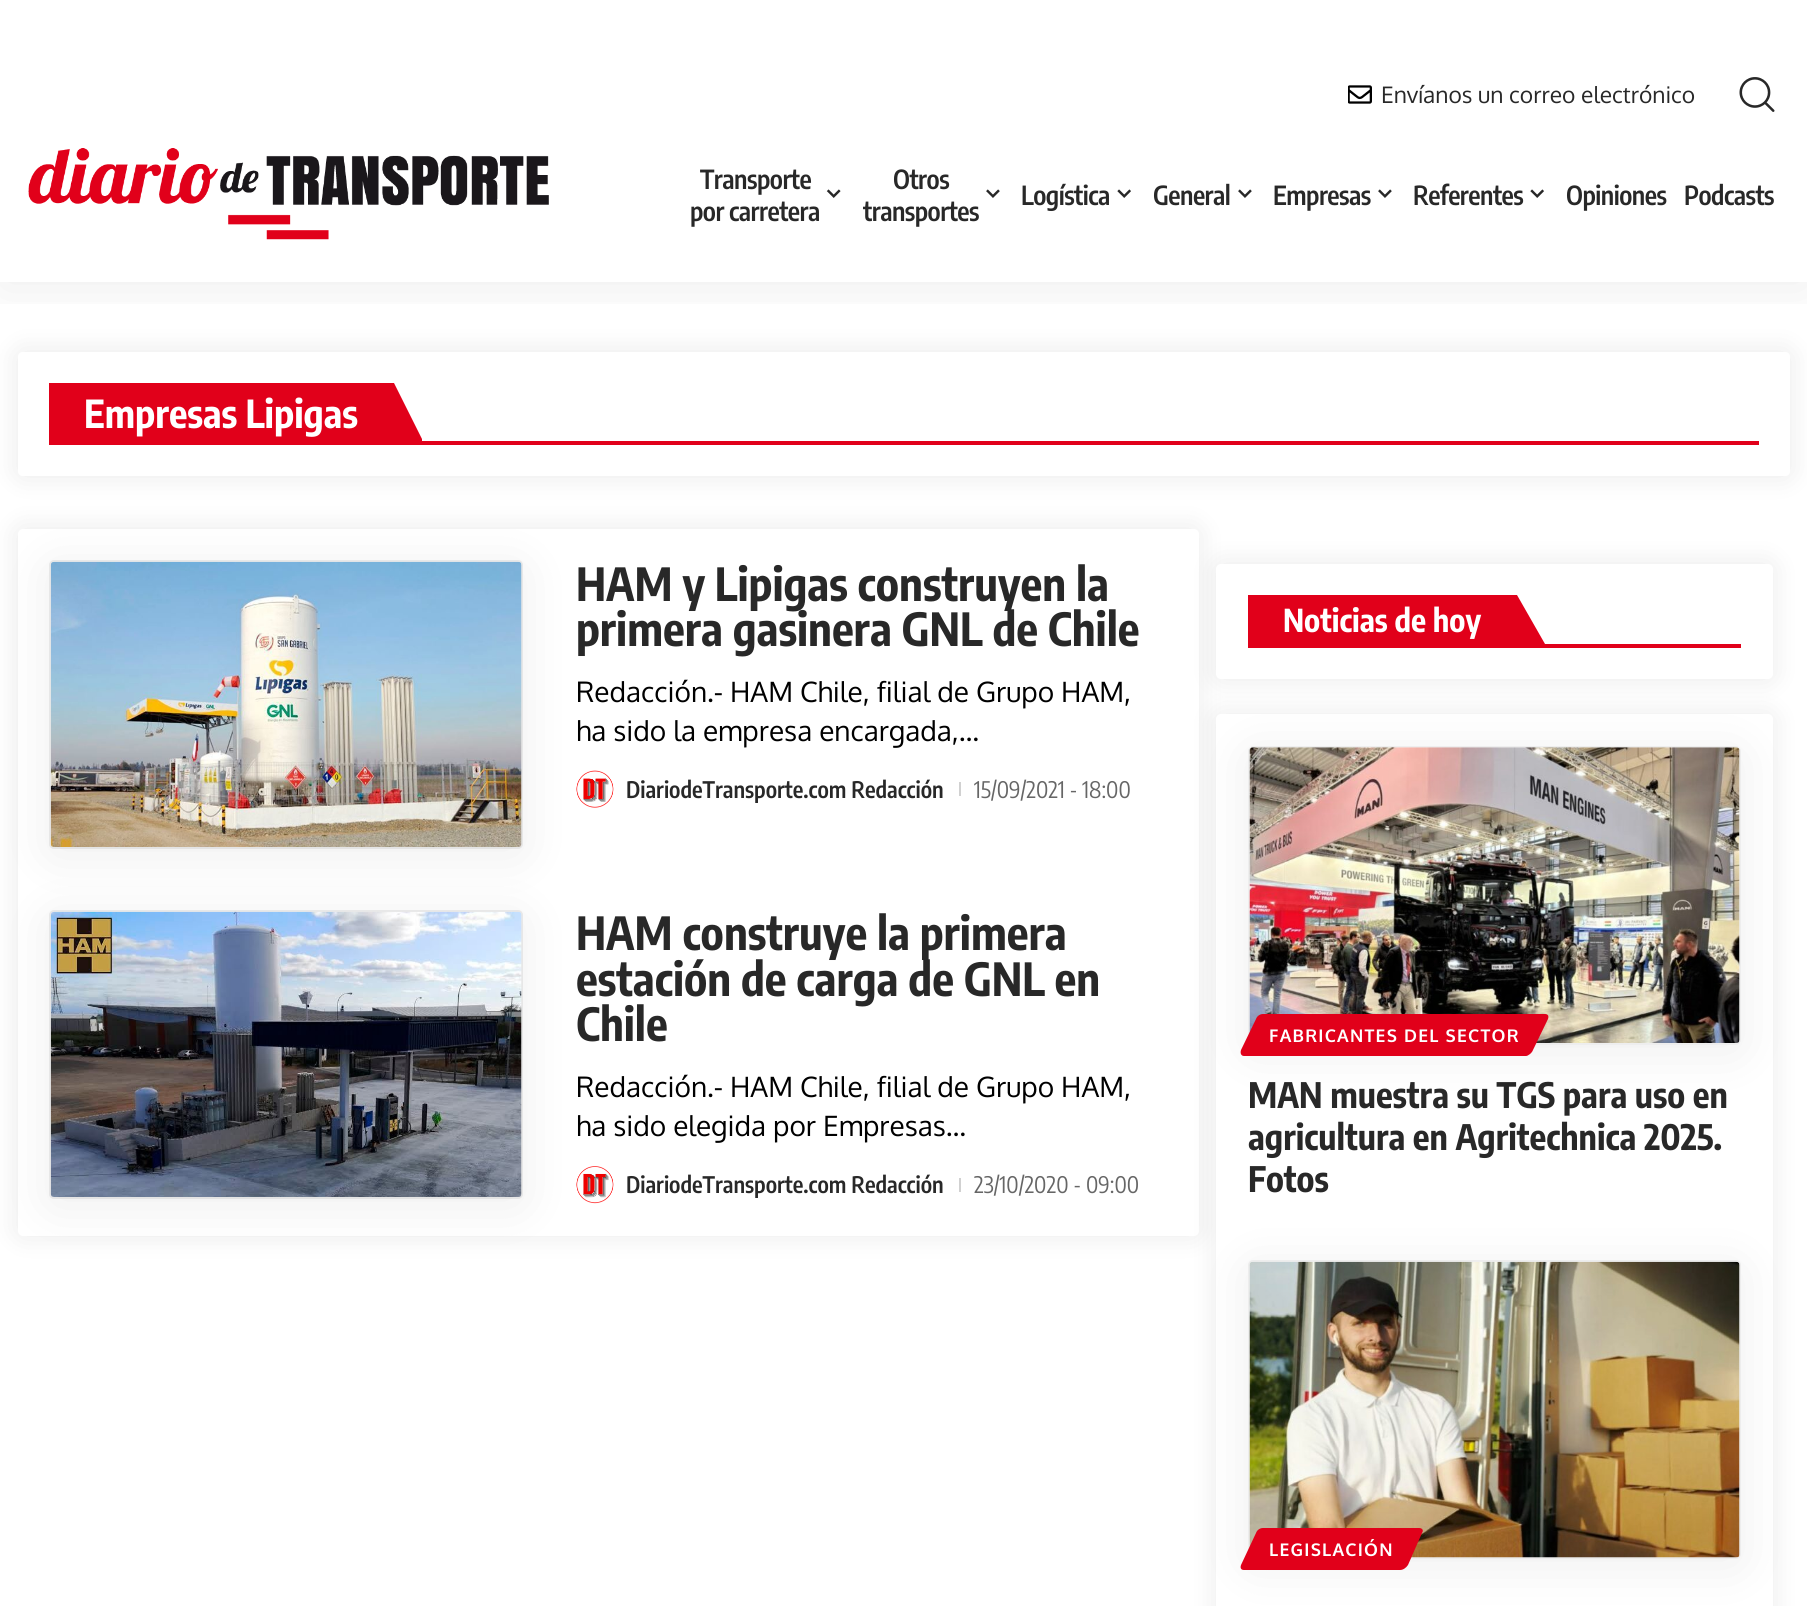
#include <cairo.h>
#include <math.h>
#include <stddef.h>

typedef struct { double x, y; const char *s; } line_t;

static void ink(cairo_t *ctx, unsigned color) {
    cairo_set_source_rgb(ctx, (color >> 16) / 255.0, (color >> 8 & 255) / 255.0, (color & 255) / 255.0);
}

static void write_spaced(cairo_t *ctx, double x, double y, const char *s, double letter, double word) {
    cairo_move_to(ctx, x, y);
    while (*s) {
        char ch[5] = {0};
        int n = 0;
        do ch[n++] = *s++; while ((*s & 0xC0) == 0x80);
        cairo_show_text(ctx, ch);
        cairo_rel_move_to(ctx, letter + word * (*ch == ' '), 0);
    }
}

static void round_path(cairo_t *ctx, double x, double y, double w, double h, double r) {
    cairo_new_sub_path(ctx);
    cairo_arc(ctx, x + w - r, y + h - r, r, 0, M_PI / 2);
    cairo_arc(ctx, x + r, y + h - r, r, M_PI / 2, M_PI);
    cairo_arc(ctx, x + r, y + r, r, M_PI, 1.5 * M_PI);
    cairo_arc(ctx, x + w - r, y + r, r, 1.5 * M_PI, 2 * M_PI);
    cairo_close_path(ctx);
}

static void blur_box(cairo_t *ctx, double x, double y, double w, double h, double r, double blur, double alpha) {
    cairo_push_group_with_content(ctx, CAIRO_CONTENT_ALPHA);
    cairo_set_operator(ctx, CAIRO_OPERATOR_SOURCE);
    for (int i = 15; i >= -15 && fmin(w, h) + blur * i / 3 > 0; i -= 2) {
        double e = blur * i / 6;
        cairo_set_source_rgba(ctx, 0, 0, 0, alpha * erfc((i - 1) / 8.5) / 2);
        round_path(ctx, x - e, y - e, w + 2 * e, h + 2 * e, fmax(0, fmin(r + e + blur * .6, fmin(w, h) / 2 + e)));
        cairo_fill(ctx);
    }
    cairo_pattern_t *soft = cairo_pop_group(ctx);
    cairo_mask(ctx, soft);
    cairo_pattern_destroy(soft);
}

static void paste(cairo_t *ctx, const char *path, double x, double y, double w, double h) {
    cairo_surface_t *image = cairo_image_surface_create_from_png(path);
    cairo_save(ctx);
    cairo_set_source_surface(ctx, image, x, y);
    cairo_rectangle(ctx, x, y, w, h);
    cairo_fill(ctx);
    cairo_restore(ctx);
    cairo_surface_destroy(image);
}

int main(void) {
    cairo_surface_t *surface = cairo_image_surface_create(CAIRO_FORMAT_RGB24, 1807, 1606);
    cairo_t *ctx = cairo_create(surface);
    cairo_font_options_t *options = cairo_font_options_create();
    cairo_font_options_set_hint_metrics(options, CAIRO_HINT_METRICS_OFF);
    cairo_font_options_set_hint_style(options, CAIRO_HINT_STYLE_NONE);
    cairo_set_font_options(ctx, options);
    cairo_set_miter_limit(ctx, 4);
    ink(ctx, 0xFFFFFF);
    cairo_paint(ctx);
    cairo_save(ctx);
    cairo_rectangle(ctx, 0, 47, 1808, 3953);
    cairo_clip(ctx);
    cairo_rectangle(ctx, 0, 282, 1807, 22);
    cairo_clip(ctx);
    ink(ctx, 0x000000);
    blur_box(ctx, 0, 54, 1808, 235, 0, 26, 0.07);
    cairo_restore(ctx);
    paste(ctx, "media/1.png", 1348, 85, 24, 19);
    cairo_select_font_face(ctx, "Oxygen", CAIRO_FONT_SLANT_NORMAL, CAIRO_FONT_WEIGHT_NORMAL);
    cairo_set_font_size(ctx, 22.75);
    ink(ctx, 0x282828);
    cairo_move_to(ctx, 1381, 103);
    cairo_show_text(ctx, "Envíanos un correo electrónico");
    paste(ctx, "media/2.png", 1739, 77, 36, 35);
    paste(ctx, "media/3.png", 28, 148, 521, 92);
    cairo_select_font_face(ctx, "Encode Sans Condensed SemiBold", CAIRO_FONT_SLANT_NORMAL, CAIRO_FONT_WEIGHT_NORMAL);
    cairo_set_font_size(ctx, 26.25);
    write_spaced(ctx, 700, 189, "Transporte", -0.5, 0);
    write_spaced(ctx, 690, 221, "por carretera", -0.5, 0);
    paste(ctx, "media/4.png", 826, 189, 15, 9);
    write_spaced(ctx, 893, 189, "Otros", -0.5, 0);
    write_spaced(ctx, 863, 221, "transportes", -0.5, 0);
    paste(ctx, "media/5.png", 986, 189, 14, 9);
    write_spaced(ctx, 1021, 205, "Logística", -0.5, 0);
    paste(ctx, "media/6.png", 1117, 189, 14, 9);
    write_spaced(ctx, 1153, 205, "General", -0.5, 0);
    paste(ctx, "media/5.png", 1238, 189, 14, 9);
    write_spaced(ctx, 1273, 205, "Empresas", -0.5, 0);
    paste(ctx, "media/5.png", 1378, 189, 14, 9);
    write_spaced(ctx, 1413, 205, "Referentes", -0.5, 0);
    paste(ctx, "media/6.png", 1530, 189, 14, 9);
    write_spaced(ctx, 1566, 205, "Opiniones", -0.5, 0);
    write_spaced(ctx, 1684, 205, "Podcasts", -0.5, 0);
    cairo_save(ctx);
    cairo_set_fill_rule(ctx, CAIRO_FILL_RULE_EVEN_ODD);
    cairo_new_path(ctx);
    cairo_move_to(ctx, 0, 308);
    cairo_line_to(ctx, 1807, 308);
    cairo_line_to(ctx, 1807, 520);
    cairo_line_to(ctx, 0, 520);
    cairo_close_path(ctx);
    cairo_move_to(ctx, 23, 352);
    cairo_line_to(ctx, 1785, 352);
    cairo_curve_to(ctx, 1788, 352, 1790, 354, 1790, 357);
    cairo_line_to(ctx, 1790, 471);
    cairo_curve_to(ctx, 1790, 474, 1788, 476, 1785, 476);
    cairo_line_to(ctx, 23, 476);
    cairo_curve_to(ctx, 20, 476, 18, 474, 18, 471);
    cairo_line_to(ctx, 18, 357);
    cairo_curve_to(ctx, 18, 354, 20, 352, 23, 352);
    cairo_close_path(ctx);
    cairo_clip(ctx);
    ink(ctx, 0x000000);
    blur_box(ctx, 14, 348, 1780, 132, 9, 13, 0.07);
    cairo_restore(ctx);
    ink(ctx, 0xE1001A);
    cairo_rectangle(ctx, 49, 441, 1710, 4);
    cairo_fill(ctx);
    cairo_rectangle(ctx, 49, 383, 345, 58);
    cairo_fill(ctx);
    cairo_new_path(ctx);
    cairo_move_to(ctx, 394, 441);
    cairo_line_to(ctx, 394, 383);
    cairo_line_to(ctx, 422, 439);
    cairo_line_to(ctx, 422, 441);
    cairo_close_path(ctx);
    cairo_fill(ctx);
    cairo_select_font_face(ctx, "Encode Sans Condensed", CAIRO_FONT_SLANT_NORMAL, CAIRO_FONT_WEIGHT_BOLD);
    cairo_set_font_size(ctx, 38.5);
    ink(ctx, 0xFFFFFF);
    cairo_move_to(ctx, 84, 428);
    cairo_show_text(ctx, "Empresas Lipigas");
    ink(ctx, 0x000000);
    blur_box(ctx, 14, 525, 1188, 714, 9, 13, 0.07);
    ink(ctx, 0xFFFFFF);
    round_path(ctx, 18, 529, 1181, 707, 5);
    cairo_fill(ctx);
    ink(ctx, 0x000000);
    blur_box(ctx, 49, 567, 474, 289, 5, 26, 0.07);
    round_path(ctx, 50, 561, 472, 287, 4);
    cairo_set_source_rgba(ctx, 0, 0, 0, 0.07);
    cairo_stroke(ctx);
    ink(ctx, 0x000000);
    blur_box(ctx, 49, 917, 474, 289, 5, 26, 0.07);
    paste(ctx, "media/7.png", 50, 561, 472, 286);
    cairo_set_font_size(ctx, 45.5);
    ink(ctx, 0x282828);
    cairo_move_to(ctx, 576, 601);
    cairo_show_text(ctx, "HAM y Lipigas construyen la");
    cairo_move_to(ctx, 576, 646);
    cairo_show_text(ctx, "primera gasinera GNL de Chile");
    cairo_select_font_face(ctx, "Oxygen", CAIRO_FONT_SLANT_NORMAL, CAIRO_FONT_WEIGHT_NORMAL);
    cairo_set_font_size(ctx, 28);
    ink(ctx, 0x000000);
    cairo_move_to(ctx, 576, 702);
    cairo_show_text(ctx, "Redacción.- HAM Chile, filial de Grupo HAM,");
    cairo_move_to(ctx, 576, 741);
    cairo_show_text(ctx, "ha sido la empresa encargada,…");
    paste(ctx, "media/8.png", 576, 770, 38, 38);
    cairo_select_font_face(ctx, "Encode Sans Condensed SemiBold", CAIRO_FONT_SLANT_NORMAL, CAIRO_FONT_WEIGHT_NORMAL);
    cairo_set_font_size(ctx, 22.75);
    ink(ctx, 0x282828);
    cairo_move_to(ctx, 626, 798);
    cairo_show_text(ctx, "DiariodeTransporte.com Redacción");
    ink(ctx, 0xD1D1D1);
    cairo_rectangle(ctx, 959, 782, 2, 14);
    cairo_fill(ctx);
    cairo_select_font_face(ctx, "Encode Sans Condensed", CAIRO_FONT_SLANT_NORMAL, CAIRO_FONT_WEIGHT_NORMAL);
    ink(ctx, 0x666666);
    cairo_move_to(ctx, 974, 798);
    cairo_show_text(ctx, "15/09/2021 - 18:00");
    round_path(ctx, 50, 911, 472, 287, 4);
    cairo_set_source_rgba(ctx, 0, 0, 0, 0.07);
    cairo_stroke(ctx);
    paste(ctx, "media/9.png", 50, 911, 472, 286);
    cairo_select_font_face(ctx, "Encode Sans Condensed", CAIRO_FONT_SLANT_NORMAL, CAIRO_FONT_WEIGHT_BOLD);
    cairo_set_font_size(ctx, 45.5);
    ink(ctx, 0x282828);
    {
        static const line_t items[] = {
            {576, 950, "HAM construye la primera"},
            {576, 996, "estación de carga de GNL en"},
            {576, 1041, "Chile"},
        };
        for (size_t i = 0; i < sizeof items / sizeof *items; i++) {
            cairo_move_to(ctx, items[i].x, items[i].y);
            cairo_show_text(ctx, items[i].s);
        }
    }
    cairo_select_font_face(ctx, "Oxygen", CAIRO_FONT_SLANT_NORMAL, CAIRO_FONT_WEIGHT_NORMAL);
    cairo_set_font_size(ctx, 28);
    ink(ctx, 0x000000);
    cairo_move_to(ctx, 576, 1097);
    cairo_show_text(ctx, "Redacción.- HAM Chile, filial de Grupo HAM,");
    cairo_move_to(ctx, 576, 1136);
    cairo_show_text(ctx, "ha sido elegida por Empresas…");
    paste(ctx, "media/10.png", 576, 1166, 38, 38);
    cairo_select_font_face(ctx, "Encode Sans Condensed SemiBold", CAIRO_FONT_SLANT_NORMAL, CAIRO_FONT_WEIGHT_NORMAL);
    cairo_set_font_size(ctx, 22.75);
    ink(ctx, 0x282828);
    cairo_move_to(ctx, 626, 1193);
    cairo_show_text(ctx, "DiariodeTransporte.com Redacción");
    ink(ctx, 0xD1D1D1);
    cairo_rectangle(ctx, 959, 1178, 2, 14);
    cairo_fill(ctx);
    cairo_select_font_face(ctx, "Encode Sans Condensed", CAIRO_FONT_SLANT_NORMAL, CAIRO_FONT_WEIGHT_NORMAL);
    ink(ctx, 0x666666);
    cairo_move_to(ctx, 974, 1193);
    cairo_show_text(ctx, "23/10/2020 - 09:00");
    ink(ctx, 0x000000);
    blur_box(ctx, 1213, 560, 563, 123, 9, 13, 0.07);
    ink(ctx, 0xFFFFFF);
    round_path(ctx, 1216, 564, 557, 115, 5);
    cairo_fill(ctx);
    ink(ctx, 0xE1001A);
    cairo_rectangle(ctx, 1248, 644, 493, 4);
    cairo_fill(ctx);
    cairo_rectangle(ctx, 1248, 595, 269, 49);
    cairo_fill(ctx);
    cairo_new_path(ctx);
    cairo_move_to(ctx, 1517, 644);
    cairo_line_to(ctx, 1517, 595);
    cairo_line_to(ctx, 1545, 644);
    cairo_close_path(ctx);
    cairo_fill(ctx);
    cairo_select_font_face(ctx, "Encode Sans Condensed", CAIRO_FONT_SLANT_NORMAL, CAIRO_FONT_WEIGHT_BOLD);
    cairo_set_font_size(ctx, 31.5);
    ink(ctx, 0xFFFFFF);
    cairo_move_to(ctx, 1283, 632);
    cairo_show_text(ctx, "Noticias de hoy");
    ink(ctx, 0x000000);
    blur_box(ctx, 1213, 711, 563, 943, 9, 13, 0.07);
    ink(ctx, 0xFFFFFF);
    round_path(ctx, 1216, 714, 557, 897, 5);
    cairo_fill(ctx);
    cairo_save(ctx);
    cairo_set_fill_rule(ctx, CAIRO_FILL_RULE_EVEN_ODD);
    cairo_new_path(ctx);
    cairo_move_to(ctx, 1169, 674);
    cairo_line_to(ctx, 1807, 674);
    cairo_line_to(ctx, 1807, 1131);
    cairo_line_to(ctx, 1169, 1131);
    cairo_close_path(ctx);
    cairo_move_to(ctx, 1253, 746);
    cairo_line_to(ctx, 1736, 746);
    cairo_curve_to(ctx, 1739, 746, 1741, 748, 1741, 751);
    cairo_line_to(ctx, 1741, 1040);
    cairo_curve_to(ctx, 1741, 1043, 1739, 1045, 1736, 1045);
    cairo_line_to(ctx, 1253, 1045);
    cairo_curve_to(ctx, 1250, 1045, 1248, 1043, 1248, 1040);
    cairo_line_to(ctx, 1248, 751);
    cairo_curve_to(ctx, 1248, 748, 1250, 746, 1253, 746);
    cairo_close_path(ctx);
    cairo_clip(ctx);
    ink(ctx, 0x000000);
    blur_box(ctx, 1248, 753, 493, 299, 5, 26, 0.07);
    cairo_restore(ctx);
    round_path(ctx, 1249, 747, 491, 297, 4);
    cairo_set_source_rgba(ctx, 0, 0, 0, 0.07);
    cairo_stroke(ctx);
    paste(ctx, "media/11.png", 1249, 747, 491, 296);
    ink(ctx, 0xE1001A);
    cairo_new_path(ctx);
    cairo_move_to(ctx, 1263, 1014);
    cairo_line_to(ctx, 1545, 1014);
    cairo_curve_to(ctx, 1548, 1014, 1549, 1016, 1548, 1019);
    cairo_line_to(ctx, 1533, 1050);
    cairo_curve_to(ctx, 1532, 1053, 1528, 1056, 1526, 1056);
    cairo_line_to(ctx, 1244, 1056);
    cairo_curve_to(ctx, 1241, 1056, 1240, 1053, 1241, 1050);
    cairo_line_to(ctx, 1256, 1019);
    cairo_curve_to(ctx, 1257, 1016, 1260, 1014, 1263, 1014);
    cairo_close_path(ctx);
    cairo_fill(ctx);
    cairo_select_font_face(ctx, "Oxygen", CAIRO_FONT_SLANT_NORMAL, CAIRO_FONT_WEIGHT_BOLD);
    cairo_set_font_size(ctx, 17.5);
    ink(ctx, 0xFFFFFF);
    write_spaced(ctx, 1269, 1042, "FABRICANTES DEL SECTOR", 1.25, 0);
    cairo_select_font_face(ctx, "Encode Sans Condensed", CAIRO_FONT_SLANT_NORMAL, CAIRO_FONT_WEIGHT_BOLD);
    cairo_set_font_size(ctx, 35);
    ink(ctx, 0x282828);
    {
        static const line_t items[] = {
            {1248, 1108, "MAN muestra su TGS para uso en"},
            {1248, 1150, "agricultura en Agritechnica 2025."},
            {1248, 1192, "Fotos"},
        };
        for (size_t i = 0; i < sizeof items / sizeof *items; i++) {
            cairo_move_to(ctx, items[i].x, items[i].y);
            cairo_show_text(ctx, items[i].s);
        }
    }
    ink(ctx, 0x000000);
    blur_box(ctx, 1248, 1267, 493, 299, 5, 26, 0.07);
    round_path(ctx, 1249, 1261, 491, 297, 4);
    ink(ctx, 0xEDEDED);
    cairo_stroke(ctx);
    paste(ctx, "media/12.png", 1249, 1261, 491, 297);
    ink(ctx, 0xE1001A);
    cairo_new_path(ctx);
    cairo_move_to(ctx, 1263, 1528);
    cairo_line_to(ctx, 1419, 1528);
    cairo_curve_to(ctx, 1422, 1528, 1424, 1530, 1422, 1533);
    cairo_line_to(ctx, 1408, 1565);
    cairo_curve_to(ctx, 1406, 1568, 1403, 1570, 1400, 1570);
    cairo_line_to(ctx, 1244, 1570);
    cairo_curve_to(ctx, 1241, 1570, 1240, 1568, 1241, 1565);
    cairo_line_to(ctx, 1256, 1533);
    cairo_curve_to(ctx, 1257, 1530, 1260, 1528, 1263, 1528);
    cairo_close_path(ctx);
    cairo_fill(ctx);
    cairo_select_font_face(ctx, "Oxygen", CAIRO_FONT_SLANT_NORMAL, CAIRO_FONT_WEIGHT_BOLD);
    cairo_set_font_size(ctx, 17.5);
    ink(ctx, 0xFFFFFF);
    write_spaced(ctx, 1269, 1556, "LEGISLACIÓN", 1.25, 0);
    cairo_surface_write_to_png(surface, "image.png");
    cairo_font_options_destroy(options);
    cairo_destroy(ctx);
    cairo_surface_destroy(surface);
    return 0;
}
